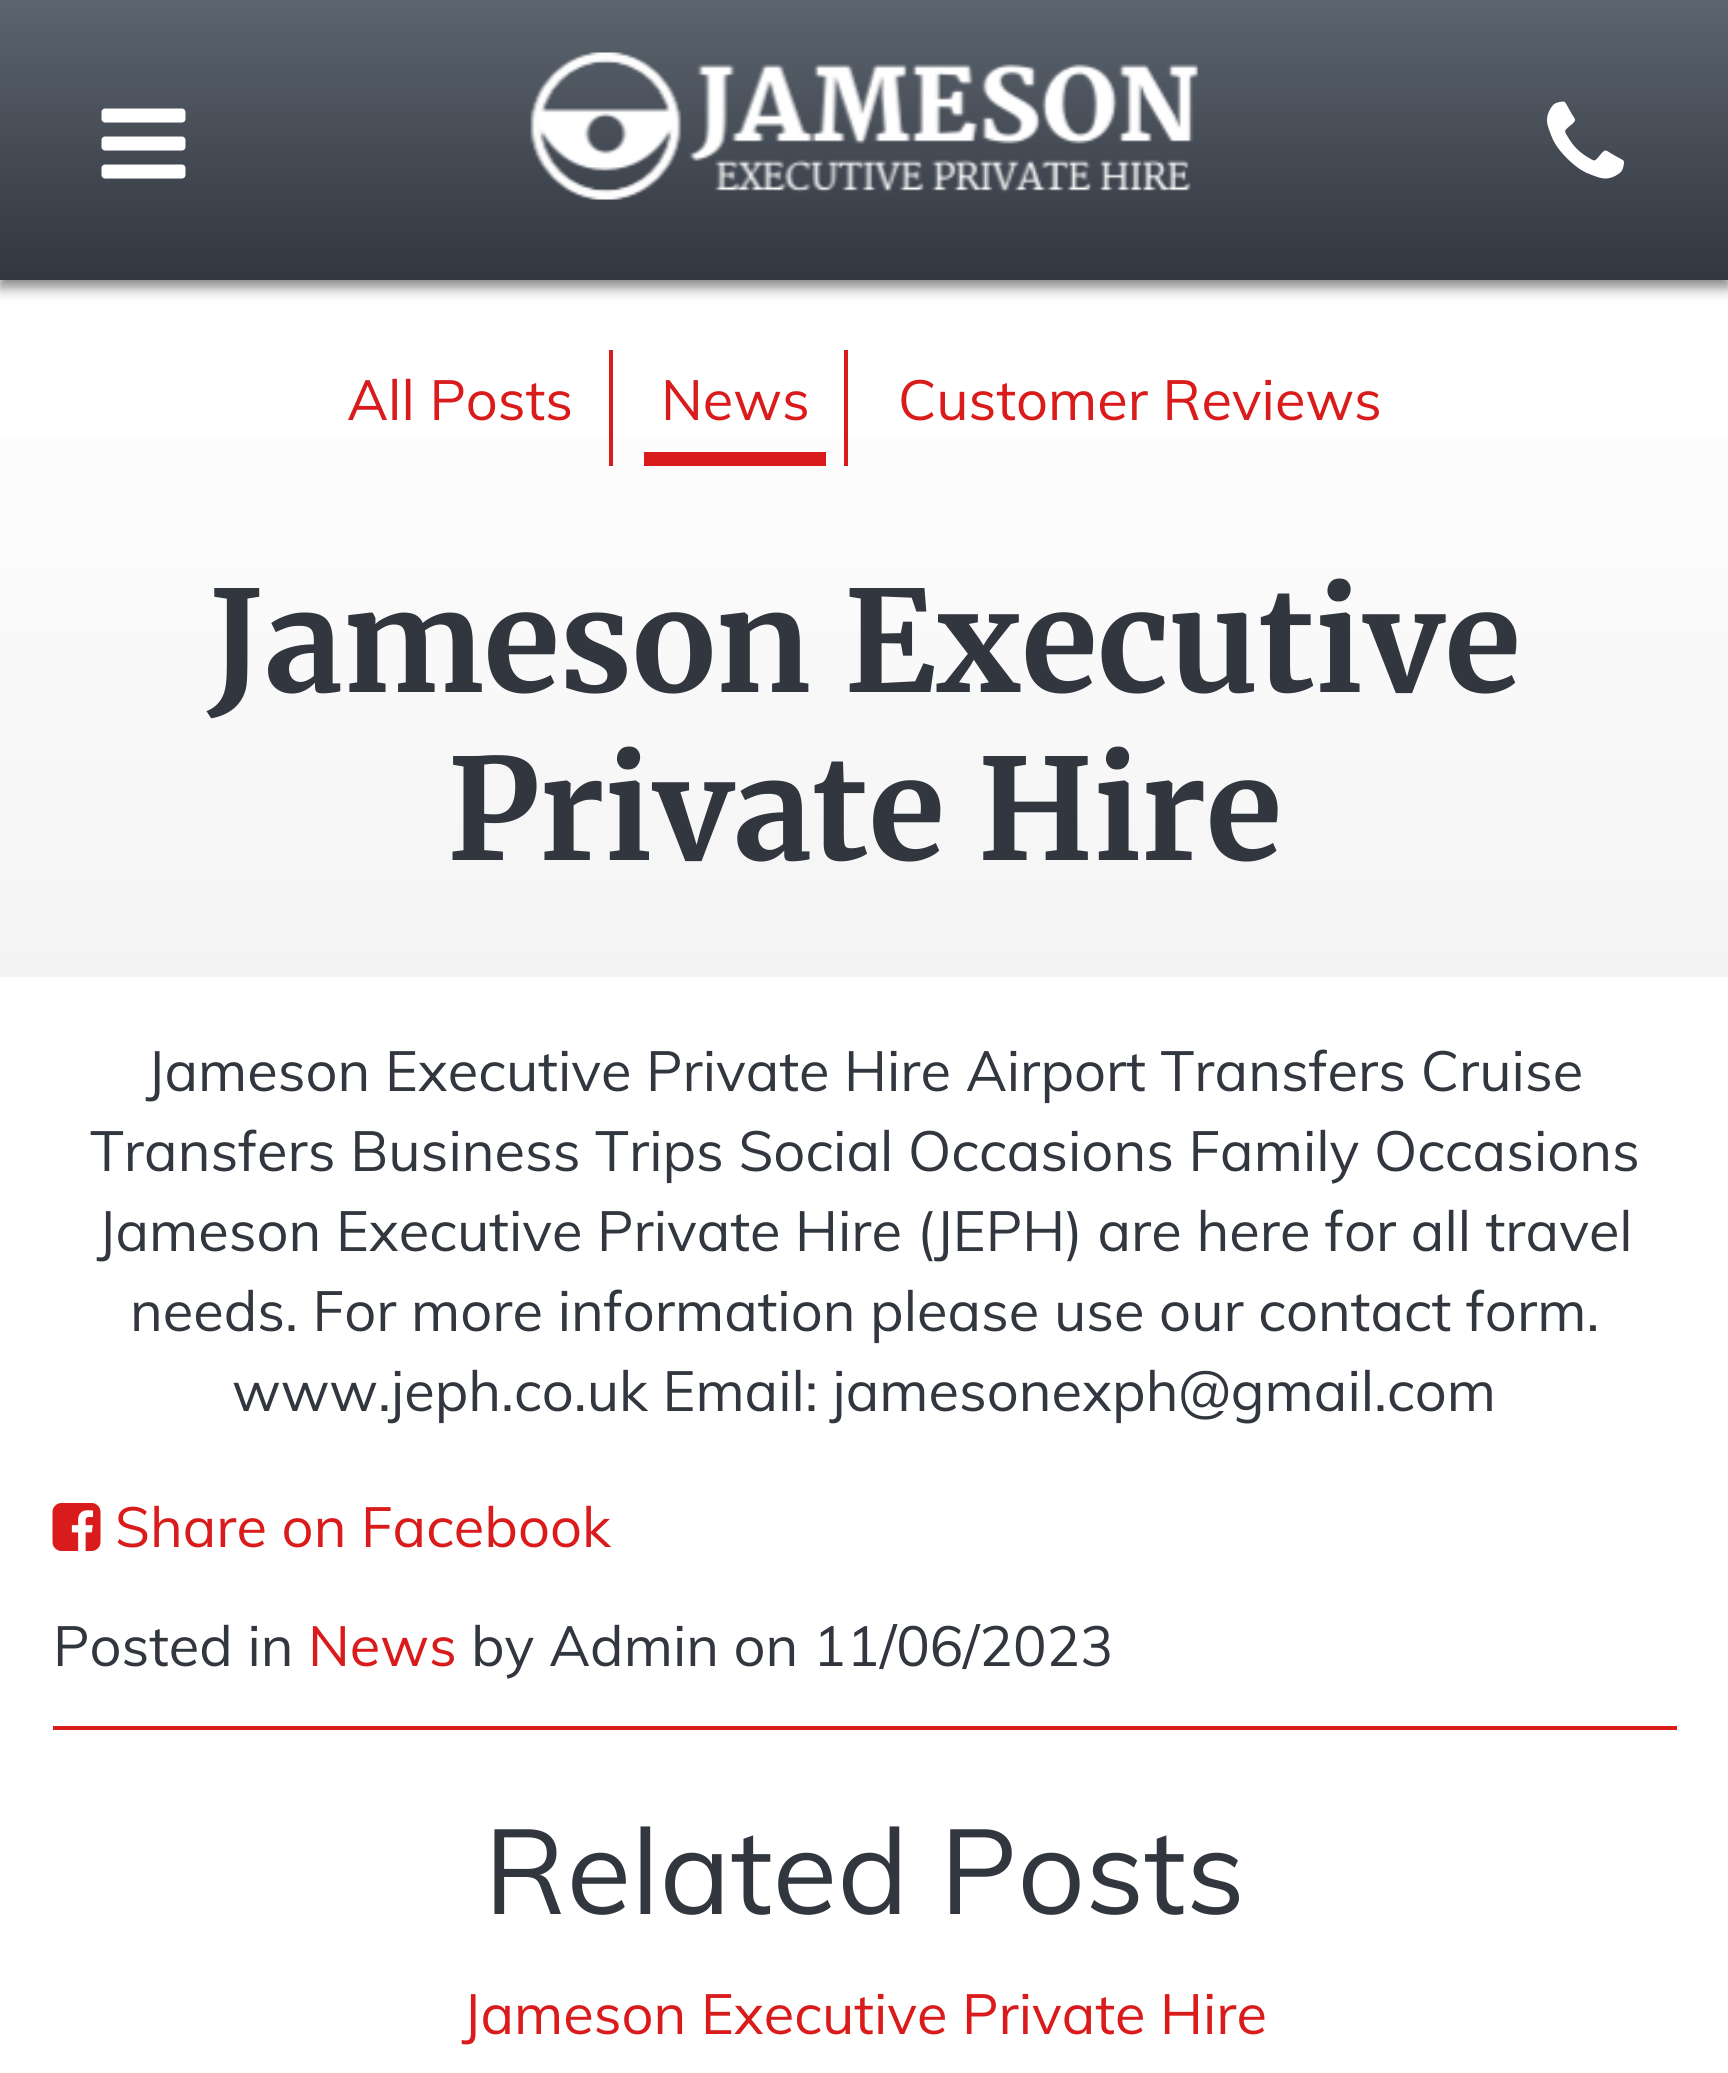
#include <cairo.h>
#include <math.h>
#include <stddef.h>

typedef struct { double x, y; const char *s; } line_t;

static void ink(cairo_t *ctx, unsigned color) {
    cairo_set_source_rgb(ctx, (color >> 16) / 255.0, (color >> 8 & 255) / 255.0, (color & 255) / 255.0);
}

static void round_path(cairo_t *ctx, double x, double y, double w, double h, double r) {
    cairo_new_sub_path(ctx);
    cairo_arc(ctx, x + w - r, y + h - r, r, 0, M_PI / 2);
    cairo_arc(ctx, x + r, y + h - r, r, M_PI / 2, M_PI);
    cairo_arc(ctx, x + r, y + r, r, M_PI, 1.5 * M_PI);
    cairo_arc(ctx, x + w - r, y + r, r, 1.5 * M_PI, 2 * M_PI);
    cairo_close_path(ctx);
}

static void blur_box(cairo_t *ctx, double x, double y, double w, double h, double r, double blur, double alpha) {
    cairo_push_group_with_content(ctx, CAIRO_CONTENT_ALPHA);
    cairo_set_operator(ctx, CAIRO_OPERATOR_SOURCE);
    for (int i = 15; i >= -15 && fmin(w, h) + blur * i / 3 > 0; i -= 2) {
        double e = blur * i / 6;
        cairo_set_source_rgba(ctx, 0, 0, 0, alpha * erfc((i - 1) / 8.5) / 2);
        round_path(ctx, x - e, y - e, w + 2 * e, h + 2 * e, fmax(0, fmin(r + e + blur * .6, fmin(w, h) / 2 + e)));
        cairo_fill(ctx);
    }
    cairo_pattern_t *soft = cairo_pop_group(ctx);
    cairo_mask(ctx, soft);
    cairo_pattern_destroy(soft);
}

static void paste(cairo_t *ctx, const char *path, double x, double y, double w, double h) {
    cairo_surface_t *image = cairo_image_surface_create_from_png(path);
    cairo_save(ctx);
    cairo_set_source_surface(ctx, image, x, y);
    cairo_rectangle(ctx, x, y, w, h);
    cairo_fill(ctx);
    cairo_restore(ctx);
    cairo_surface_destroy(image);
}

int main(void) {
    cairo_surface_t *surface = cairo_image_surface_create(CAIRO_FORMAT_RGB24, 1728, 2073);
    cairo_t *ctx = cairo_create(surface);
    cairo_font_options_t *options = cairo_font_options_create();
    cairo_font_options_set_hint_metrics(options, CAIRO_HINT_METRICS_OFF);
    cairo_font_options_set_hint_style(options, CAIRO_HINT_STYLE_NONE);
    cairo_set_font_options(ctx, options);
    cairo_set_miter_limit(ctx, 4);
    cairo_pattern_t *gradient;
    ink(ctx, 0xFFFFFF);
    cairo_paint(ctx);
    ink(ctx, 0x000000);
    blur_box(ctx, 0, 7, 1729, 280, 0, 7, 0.5);
    gradient = cairo_pattern_create_linear(865, 0, 865, 280);
    cairo_pattern_add_color_stop_rgba(gradient, 0, 0.357, 0.392, 0.435, 1);
    cairo_pattern_add_color_stop_rgba(gradient, 1, 0.196, 0.212, 0.247, 1);
    cairo_set_source(ctx, gradient);
    cairo_pattern_destroy(gradient);
    cairo_rectangle(ctx, 0, 0, 1728, 280);
    cairo_fill(ctx);
    paste(ctx, "media/1.png", 101, 108, 85, 71);
    paste(ctx, "media/2.png", 530, 52, 669, 148);
    paste(ctx, "media/3.png", 1547, 101, 77, 78);
    gradient = cairo_pattern_create_linear(865, 280, 865, 977);
    cairo_pattern_add_color_stop_rgba(gradient, 0, 1, 1, 1, 1);
    cairo_pattern_add_color_stop_rgba(gradient, 1, 0.957, 0.957, 0.957, 1);
    cairo_set_source(ctx, gradient);
    cairo_pattern_destroy(gradient);
    cairo_rectangle(ctx, 0, 438, 1728, 539);
    cairo_fill(ctx);
    ink(ctx, 0xDA1B1B);
    cairo_rectangle(ctx, 609, 350, 4, 116);
    cairo_fill(ctx);
    cairo_select_font_face(ctx, "Muli", CAIRO_FONT_SLANT_NORMAL, CAIRO_FONT_WEIGHT_NORMAL);
    cairo_set_font_size(ctx, 56);
    cairo_move_to(ctx, 347, 420);
    cairo_show_text(ctx, "All Posts");
    cairo_rectangle(ctx, 844, 350, 4, 116);
    cairo_fill(ctx);
    cairo_rectangle(ctx, 644, 452, 182, 14);
    cairo_fill(ctx);
    cairo_move_to(ctx, 661, 420);
    cairo_show_text(ctx, "News");
    cairo_move_to(ctx, 898, 420);
    cairo_show_text(ctx, "Customer Reviews");
    cairo_select_font_face(ctx, "Merriweather", CAIRO_FONT_SLANT_NORMAL, CAIRO_FONT_WEIGHT_BOLD);
    cairo_set_font_size(ctx, 140);
    ink(ctx, 0x32363F);
    cairo_move_to(ctx, 209, 692);
    cairo_show_text(ctx, "Jameson Executive");
    cairo_move_to(ctx, 447, 860);
    cairo_show_text(ctx, "Private Hire");
    cairo_select_font_face(ctx, "Muli", CAIRO_FONT_SLANT_NORMAL, CAIRO_FONT_WEIGHT_NORMAL);
    cairo_set_font_size(ctx, 56);
    {
        static const line_t items[] = {
            {146, 1091, "Jameson Executive Private Hire Airport Transfers Cruise"},
            {90, 1171, "Transfers Business Trips Social Occasions Family Occasions"},
            {97, 1251, "Jameson Executive Private Hire (JEPH) are here for all travel"},
            {130, 1331, "needs. For more information please use our contact form."},
            {232, 1411, "www.jeph.co.uk Email: jamesonexph@gmail.com"},
        };
        for (size_t i = 0; i < sizeof items / sizeof *items; i++) {
            cairo_move_to(ctx, items[i].x, items[i].y);
            cairo_show_text(ctx, items[i].s);
        }
    }
    ink(ctx, 0xDA1B1B);
    cairo_rectangle(ctx, 53, 1726, 1624, 4);
    cairo_fill(ctx);
    paste(ctx, "media/4.png", 52, 1503, 49, 48);
    cairo_move_to(ctx, 115, 1547);
    cairo_show_text(ctx, "Share on Facebook");
    ink(ctx, 0x32363F);
    cairo_move_to(ctx, 53, 1666);
    cairo_show_text(ctx, "Posted in");
    ink(ctx, 0xDA1B1B);
    cairo_move_to(ctx, 308, 1666);
    cairo_show_text(ctx, "News");
    ink(ctx, 0x32363F);
    cairo_move_to(ctx, 471, 1666);
    cairo_show_text(ctx, "by Admin on 11/06/2023");
    cairo_set_font_size(ctx, 119);
    cairo_move_to(ctx, 484, 1914);
    cairo_show_text(ctx, "Related Posts");
    cairo_set_font_size(ctx, 56);
    ink(ctx, 0xDA1B1B);
    cairo_move_to(ctx, 462, 2034);
    cairo_show_text(ctx, "Jameson Executive Private Hire");
    cairo_surface_write_to_png(surface, "image.png");
    cairo_font_options_destroy(options);
    cairo_destroy(ctx);
    cairo_surface_destroy(surface);
    return 0;
}
